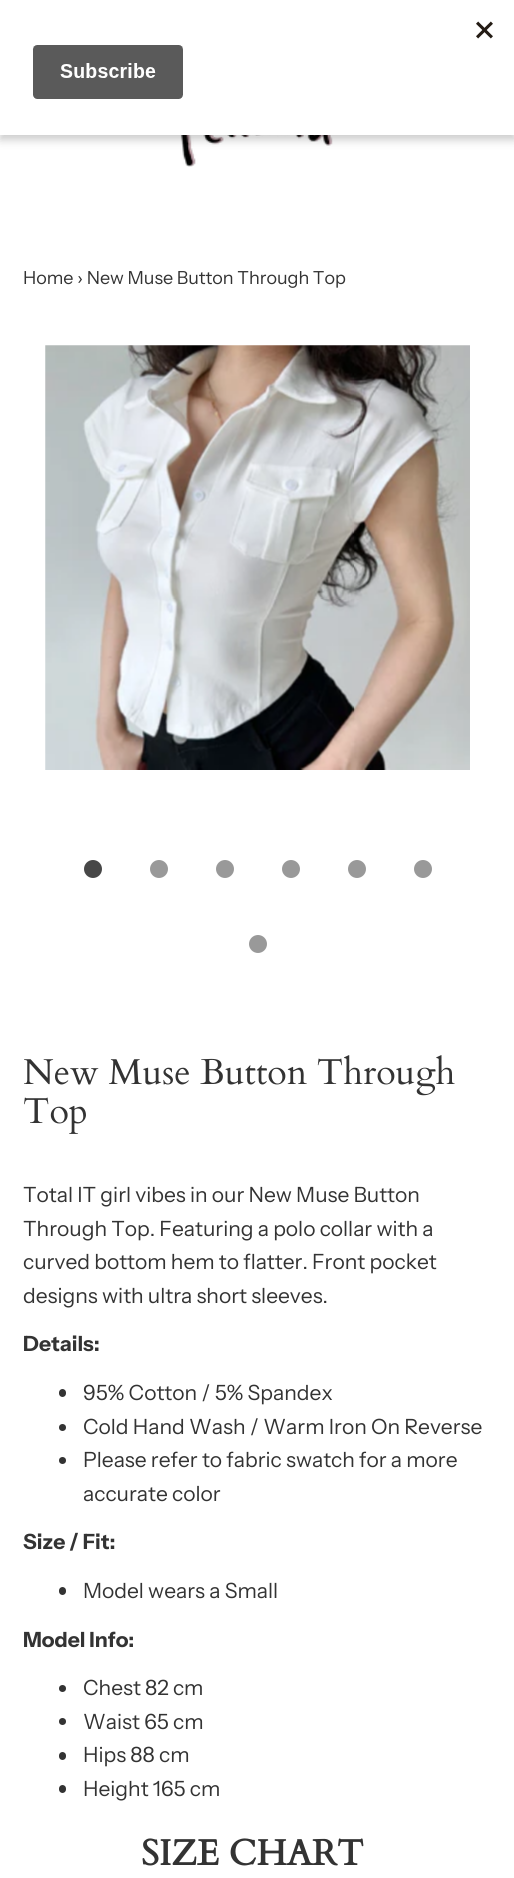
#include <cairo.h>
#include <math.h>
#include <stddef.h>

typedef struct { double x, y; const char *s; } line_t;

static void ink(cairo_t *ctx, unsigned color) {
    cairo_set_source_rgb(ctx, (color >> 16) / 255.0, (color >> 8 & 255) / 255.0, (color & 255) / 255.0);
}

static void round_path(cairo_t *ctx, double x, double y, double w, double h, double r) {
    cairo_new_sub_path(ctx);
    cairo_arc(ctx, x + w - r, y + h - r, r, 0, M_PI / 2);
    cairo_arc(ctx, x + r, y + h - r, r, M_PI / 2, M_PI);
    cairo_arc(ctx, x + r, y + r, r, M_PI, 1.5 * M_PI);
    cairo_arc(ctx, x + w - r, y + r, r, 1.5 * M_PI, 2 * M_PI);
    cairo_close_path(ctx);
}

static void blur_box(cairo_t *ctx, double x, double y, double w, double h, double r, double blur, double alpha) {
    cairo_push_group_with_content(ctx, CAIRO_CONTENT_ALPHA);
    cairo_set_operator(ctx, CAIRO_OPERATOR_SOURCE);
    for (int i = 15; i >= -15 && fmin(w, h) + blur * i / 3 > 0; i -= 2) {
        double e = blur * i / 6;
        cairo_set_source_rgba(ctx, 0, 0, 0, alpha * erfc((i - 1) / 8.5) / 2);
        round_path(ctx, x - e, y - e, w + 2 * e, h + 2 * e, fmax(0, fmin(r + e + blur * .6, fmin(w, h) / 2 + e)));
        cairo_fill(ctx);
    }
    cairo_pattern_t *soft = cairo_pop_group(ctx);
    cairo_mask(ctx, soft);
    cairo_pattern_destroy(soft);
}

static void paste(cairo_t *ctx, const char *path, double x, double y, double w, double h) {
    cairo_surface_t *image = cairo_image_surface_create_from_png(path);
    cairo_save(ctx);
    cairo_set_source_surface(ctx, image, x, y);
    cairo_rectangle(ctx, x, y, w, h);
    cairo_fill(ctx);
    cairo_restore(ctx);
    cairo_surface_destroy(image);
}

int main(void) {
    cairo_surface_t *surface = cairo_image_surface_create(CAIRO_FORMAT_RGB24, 514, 1878);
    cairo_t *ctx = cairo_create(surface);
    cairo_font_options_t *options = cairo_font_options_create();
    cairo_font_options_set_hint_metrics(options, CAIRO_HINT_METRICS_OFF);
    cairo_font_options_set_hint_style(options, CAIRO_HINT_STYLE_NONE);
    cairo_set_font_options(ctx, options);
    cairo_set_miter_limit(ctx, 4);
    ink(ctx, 0xFFFFFF);
    cairo_paint(ctx);
    paste(ctx, "media/2.png", 180, 135, 153, 32);
    ink(ctx, 0x000000);
    blur_box(ctx, 0, 5, 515, 135, 0, 4.5, 0.2);
    ink(ctx, 0xFFFFFF);
    cairo_rectangle(ctx, 0, 0, 514, 135);
    cairo_fill(ctx);
    paste(ctx, "media/1.png", 32, 21, 461, 78);
    cairo_select_font_face(ctx, "Instrument Sans", CAIRO_FONT_SLANT_NORMAL, CAIRO_FONT_WEIGHT_NORMAL);
    cairo_set_font_size(ctx, 18);
    ink(ctx, 0x333333);
    cairo_move_to(ctx, 23, 284);
    cairo_show_text(ctx, "Home › New Muse Button Through Top");
    paste(ctx, "media/3.png", 45, 345, 425, 425);
    ink(ctx, 0x474747);
    cairo_arc(ctx, 93, 869, 9, 0, 2 * M_PI);
    cairo_fill(ctx);
    ink(ctx, 0x999999);
    cairo_arc(ctx, 159, 869, 9, 0, 2 * M_PI);
    cairo_fill(ctx);
    cairo_arc(ctx, 225, 869, 9, 0, 2 * M_PI);
    cairo_fill(ctx);
    cairo_arc(ctx, 291, 869, 9, 0, 2 * M_PI);
    cairo_fill(ctx);
    cairo_arc(ctx, 357, 869, 9, 0, 2 * M_PI);
    cairo_fill(ctx);
    cairo_arc(ctx, 423, 869, 9, 0, 2 * M_PI);
    cairo_fill(ctx);
    cairo_arc(ctx, 258, 944, 9, 0, 2 * M_PI);
    cairo_fill(ctx);
    cairo_select_font_face(ctx, "Cardo", CAIRO_FONT_SLANT_NORMAL, CAIRO_FONT_WEIGHT_NORMAL);
    cairo_set_font_size(ctx, 36);
    ink(ctx, 0x333333);
    cairo_move_to(ctx, 23, 1084);
    cairo_show_text(ctx, "New Muse Button Through");
    cairo_move_to(ctx, 23, 1123);
    cairo_show_text(ctx, "Top");
    cairo_select_font_face(ctx, "Instrument Sans", CAIRO_FONT_SLANT_NORMAL, CAIRO_FONT_WEIGHT_NORMAL);
    cairo_set_font_size(ctx, 21);
    {
        static const line_t items[] = {
            {23, 1202, "Total IT girl vibes in our New Muse Button"},
            {23, 1236, "Through Top. Featuring a polo collar with a"},
            {23, 1269, "curved bottom hem to flatter. Front pocket"},
            {23, 1303, "designs with ultra short sleeves."},
        };
        for (size_t i = 0; i < sizeof items / sizeof *items; i++) {
            cairo_move_to(ctx, items[i].x, items[i].y);
            cairo_show_text(ctx, items[i].s);
        }
    }
    cairo_select_font_face(ctx, "Instrument Sans", CAIRO_FONT_SLANT_NORMAL, CAIRO_FONT_WEIGHT_BOLD);
    cairo_move_to(ctx, 23, 1351);
    cairo_show_text(ctx, "Details:");
    round_path(ctx, 59, 1389, 7, 8, 3.5);
    cairo_fill(ctx);
    cairo_select_font_face(ctx, "Instrument Sans", CAIRO_FONT_SLANT_NORMAL, CAIRO_FONT_WEIGHT_NORMAL);
    cairo_move_to(ctx, 83, 1400);
    cairo_show_text(ctx, "95% Cotton / 5% Spandex");
    cairo_new_path(ctx);
    cairo_arc(ctx, 62.5, 1427.5, 3.5, 0, 2 * M_PI);
    cairo_fill(ctx);
    cairo_move_to(ctx, 83, 1434);
    cairo_show_text(ctx, "Cold Hand Wash / Warm Iron On Reverse");
    cairo_new_path(ctx);
    cairo_arc(ctx, 62.5, 1460.5, 3.5, 0, 2 * M_PI);
    cairo_fill(ctx);
    cairo_move_to(ctx, 83, 1467);
    cairo_show_text(ctx, "Please refer to fabric swatch for a more");
    cairo_move_to(ctx, 83, 1501);
    cairo_show_text(ctx, "accurate color");
    cairo_select_font_face(ctx, "Instrument Sans", CAIRO_FONT_SLANT_NORMAL, CAIRO_FONT_WEIGHT_BOLD);
    cairo_move_to(ctx, 23, 1549);
    cairo_show_text(ctx, "Size / Fit:");
    round_path(ctx, 59, 1587, 7, 8, 3.5);
    cairo_fill(ctx);
    cairo_select_font_face(ctx, "Instrument Sans", CAIRO_FONT_SLANT_NORMAL, CAIRO_FONT_WEIGHT_NORMAL);
    cairo_move_to(ctx, 83, 1598);
    cairo_show_text(ctx, "Model wears a Small");
    cairo_select_font_face(ctx, "Instrument Sans", CAIRO_FONT_SLANT_NORMAL, CAIRO_FONT_WEIGHT_BOLD);
    cairo_move_to(ctx, 23, 1647);
    cairo_show_text(ctx, "Model Info:");
    cairo_new_path(ctx);
    cairo_arc(ctx, 62.5, 1688.5, 3.5, 0, 2 * M_PI);
    cairo_fill(ctx);
    cairo_select_font_face(ctx, "Instrument Sans", CAIRO_FONT_SLANT_NORMAL, CAIRO_FONT_WEIGHT_NORMAL);
    cairo_move_to(ctx, 83, 1695);
    cairo_show_text(ctx, "Chest 82 cm");
    cairo_new_path(ctx);
    cairo_arc(ctx, 62.5, 1721.5, 3.5, 0, 2 * M_PI);
    cairo_fill(ctx);
    cairo_move_to(ctx, 83, 1729);
    cairo_show_text(ctx, "Waist 65 cm");
    round_path(ctx, 59, 1752, 7, 8, 3.5);
    cairo_fill(ctx);
    cairo_move_to(ctx, 83, 1762);
    cairo_show_text(ctx, "Hips 88 cm");
    round_path(ctx, 59, 1785, 7, 8, 3.5);
    cairo_fill(ctx);
    cairo_move_to(ctx, 83, 1796);
    cairo_show_text(ctx, "Height 165 cm");
    cairo_select_font_face(ctx, "Cardo", CAIRO_FONT_SLANT_NORMAL, CAIRO_FONT_WEIGHT_BOLD);
    cairo_set_font_size(ctx, 36);
    cairo_move_to(ctx, 141, 1865);
    cairo_show_text(ctx, "SIZE CHART");
    cairo_surface_write_to_png(surface, "image.png");
    cairo_font_options_destroy(options);
    cairo_destroy(ctx);
    cairo_surface_destroy(surface);
    return 0;
}
